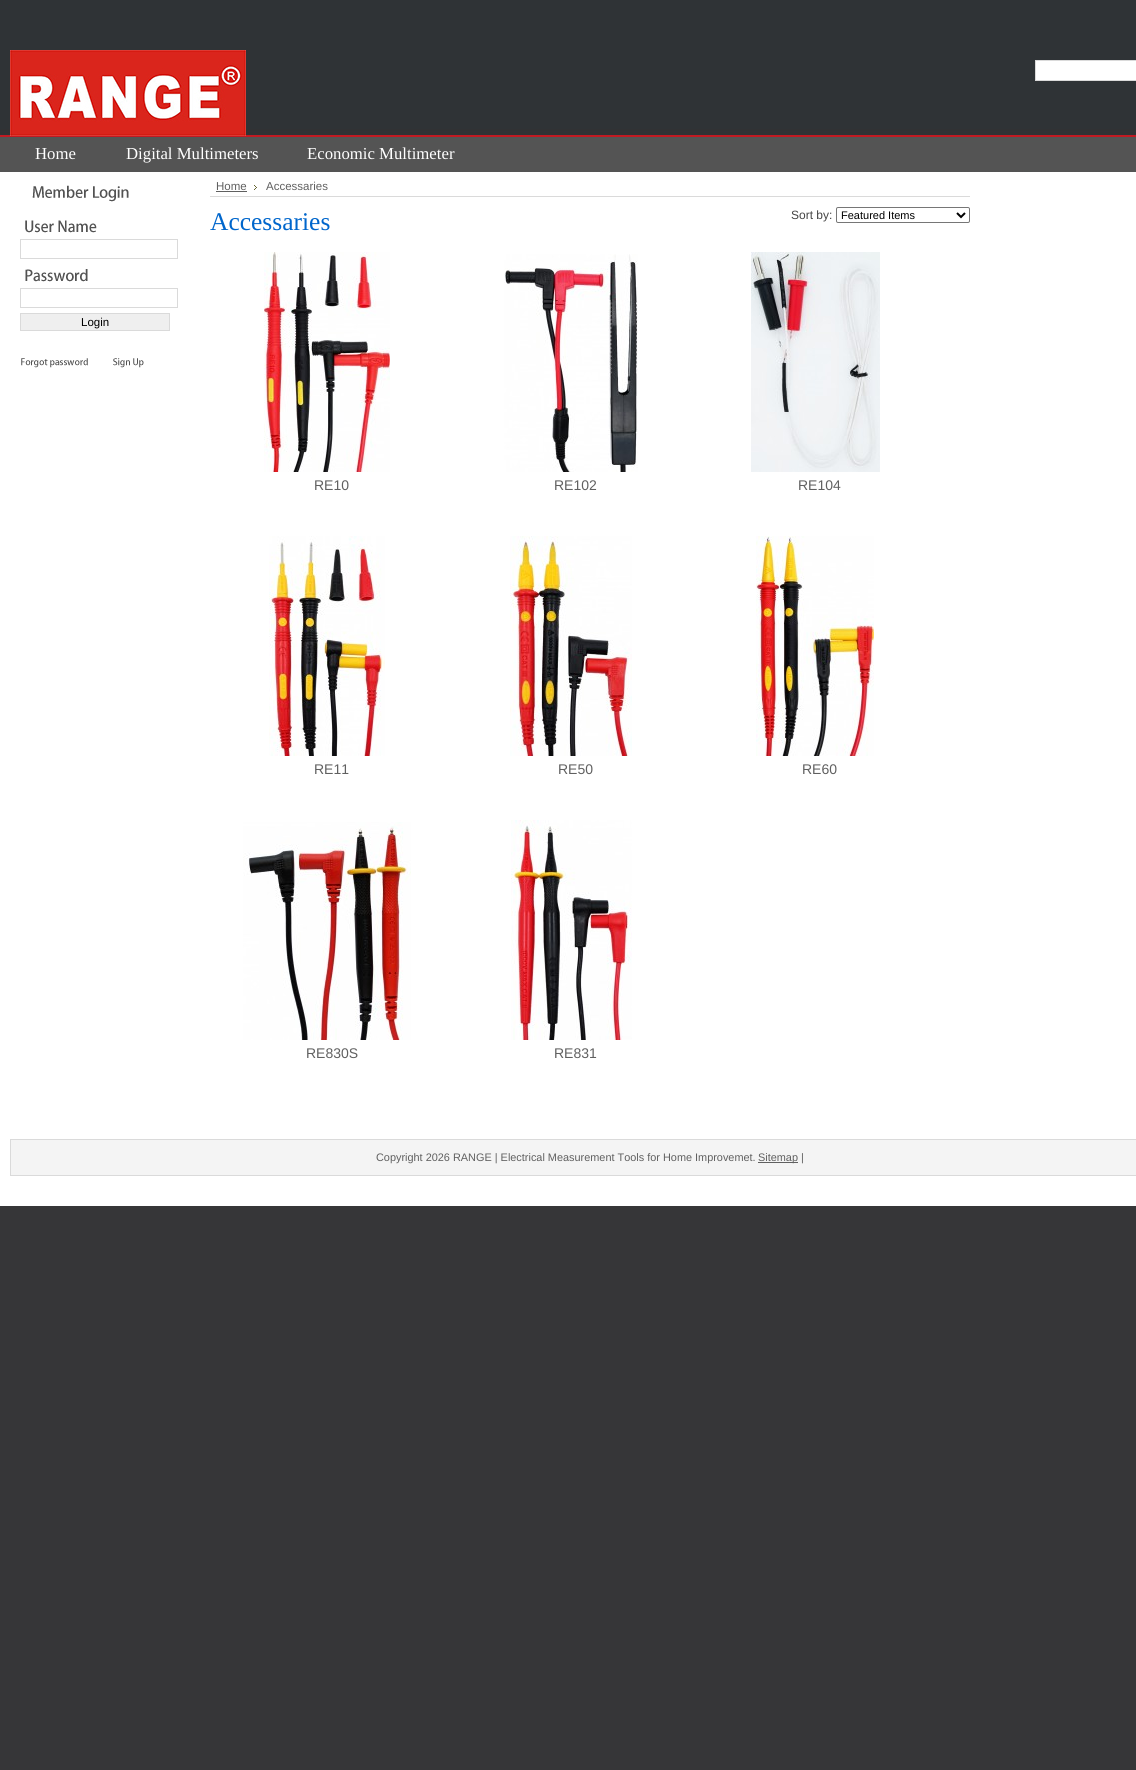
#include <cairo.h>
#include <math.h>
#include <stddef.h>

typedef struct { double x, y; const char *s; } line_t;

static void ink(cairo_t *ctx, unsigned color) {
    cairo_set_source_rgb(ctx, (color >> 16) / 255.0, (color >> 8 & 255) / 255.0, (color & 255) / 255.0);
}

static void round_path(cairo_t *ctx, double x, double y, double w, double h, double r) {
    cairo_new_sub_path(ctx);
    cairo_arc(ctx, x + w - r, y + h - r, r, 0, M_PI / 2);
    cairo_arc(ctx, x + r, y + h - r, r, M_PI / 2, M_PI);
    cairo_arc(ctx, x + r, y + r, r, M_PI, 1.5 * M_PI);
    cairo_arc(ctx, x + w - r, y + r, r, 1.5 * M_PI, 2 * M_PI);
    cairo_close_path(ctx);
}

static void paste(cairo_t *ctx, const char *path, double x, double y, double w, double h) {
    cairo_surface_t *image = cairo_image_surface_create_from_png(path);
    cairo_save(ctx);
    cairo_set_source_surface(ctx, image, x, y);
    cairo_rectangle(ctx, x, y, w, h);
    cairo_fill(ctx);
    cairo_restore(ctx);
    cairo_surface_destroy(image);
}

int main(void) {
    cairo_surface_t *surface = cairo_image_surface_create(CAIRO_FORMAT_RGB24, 1136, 1770);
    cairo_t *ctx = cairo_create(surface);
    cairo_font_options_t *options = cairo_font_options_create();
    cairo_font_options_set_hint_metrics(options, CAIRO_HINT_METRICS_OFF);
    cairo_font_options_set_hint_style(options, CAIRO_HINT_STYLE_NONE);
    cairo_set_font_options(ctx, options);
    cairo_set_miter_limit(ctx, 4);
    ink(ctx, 0x363638);
    cairo_paint(ctx);
    paste(ctx, "media/1.png", 0, 0, 1136, 172);
    ink(ctx, 0xFFFFFF);
    cairo_rectangle(ctx, 0, 172, 1136, 1034);
    cairo_fill(ctx);
    paste(ctx, "media/2.png", 10, 50, 236, 86);
    cairo_rectangle(ctx, 1035.5, 60.5, 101, 20);
    cairo_fill_preserve(ctx);
    ink(ctx, 0xDADADA);
    cairo_set_line_width(ctx, 1);
    cairo_stroke(ctx);
    cairo_select_font_face(ctx, "Liberation Serif", CAIRO_FONT_SLANT_NORMAL, CAIRO_FONT_WEIGHT_NORMAL);
    cairo_set_font_size(ctx, 16.75);
    ink(ctx, 0xFFFFFF);
    {
        static const line_t items[] = {
            {35, 159, "Home"},
            {126, 159, "Digital Multimeters"},
            {307, 159, "Economic Multimeter"},
        };
        for (size_t i = 0; i < sizeof items / sizeof *items; i++) {
            cairo_move_to(ctx, items[i].x, items[i].y);
            cairo_show_text(ctx, items[i].s);
        }
    }
    paste(ctx, "media/3.png", 32, 185, 97, 17);
    paste(ctx, "media/4.png", 25, 220, 72, 13);
    cairo_rectangle(ctx, 20.5, 239.5, 157, 19);
    ink(ctx, 0xDADADA);
    cairo_stroke(ctx);
    paste(ctx, "media/5.png", 25, 269, 63, 13);
    cairo_rectangle(ctx, 20.5, 288.5, 157, 19);
    cairo_stroke(ctx);
    ink(ctx, 0xEFEFEF);
    cairo_rectangle(ctx, 20.5, 313.5, 149, 17);
    cairo_fill_preserve(ctx);
    ink(ctx, 0xDADADA);
    cairo_stroke(ctx);
    cairo_select_font_face(ctx, "Liberation Sans", CAIRO_FONT_SLANT_NORMAL, CAIRO_FONT_WEIGHT_NORMAL);
    cairo_set_font_size(ctx, 11.5);
    ink(ctx, 0x000000);
    cairo_move_to(ctx, 81, 326);
    cairo_show_text(ctx, "Login");
    paste(ctx, "media/6.png", 21, 358, 67, 10);
    paste(ctx, "media/7.png", 113, 358, 31, 10);
    ink(ctx, 0xDADADA);
    cairo_rectangle(ctx, 210, 196, 760, 1);
    cairo_fill(ctx);
    ink(ctx, 0x606060);
    cairo_move_to(ctx, 216, 190);
    cairo_show_text(ctx, "Home");
    cairo_rectangle(ctx, 216, 191, 31, 1);
    cairo_fill(ctx);
    paste(ctx, "media/8.png", 254, 185, 3, 5);
    cairo_move_to(ctx, 266, 190);
    cairo_show_text(ctx, "Accessaries");
    cairo_select_font_face(ctx, "Liberation Serif", CAIRO_FONT_SLANT_NORMAL, CAIRO_FONT_WEIGHT_NORMAL);
    cairo_set_font_size(ctx, 25.5);
    ink(ctx, 0x0066CC);
    cairo_move_to(ctx, 210, 230);
    cairo_show_text(ctx, "Accessaries");
    cairo_select_font_face(ctx, "Liberation Sans", CAIRO_FONT_SLANT_NORMAL, CAIRO_FONT_WEIGHT_NORMAL);
    cairo_set_font_size(ctx, 12);
    ink(ctx, 0x444444);
    cairo_move_to(ctx, 791, 219);
    cairo_show_text(ctx, "Sort by:");
    round_path(ctx, 836.5, 207.5, 133, 15, 1.5);
    ink(ctx, 0x767676);
    cairo_stroke(ctx);
    cairo_new_path(ctx);
    cairo_move_to(ctx, 957, 213);
    cairo_line_to(ctx, 961, 217);
    cairo_line_to(ctx, 965, 213);
    ink(ctx, 0x000000);
    cairo_set_line_width(ctx, 2);
    cairo_stroke(ctx);
    cairo_set_font_size(ctx, 11);
    cairo_move_to(ctx, 841, 219);
    cairo_show_text(ctx, "Featured Items");
    paste(ctx, "media/9.png", 264, 252, 126, 220);
    cairo_set_font_size(ctx, 14);
    ink(ctx, 0x606060);
    cairo_move_to(ctx, 314, 490);
    cairo_show_text(ctx, "RE10");
    paste(ctx, "media/10.png", 504, 254, 134, 218);
    cairo_move_to(ctx, 554, 490);
    cairo_show_text(ctx, "RE102");
    paste(ctx, "media/11.png", 751, 252, 129, 220);
    cairo_move_to(ctx, 798, 490);
    cairo_show_text(ctx, "RE104");
    paste(ctx, "media/12.png", 269, 536, 116, 220);
    cairo_move_to(ctx, 314, 774);
    cairo_show_text(ctx, "RE11");
    paste(ctx, "media/13.png", 510, 536, 122, 220);
    cairo_move_to(ctx, 558, 774);
    cairo_show_text(ctx, "RE50");
    paste(ctx, "media/14.png", 756, 536, 118, 220);
    cairo_move_to(ctx, 802, 774);
    cairo_show_text(ctx, "RE60");
    paste(ctx, "media/15.png", 243, 822, 168, 218);
    cairo_move_to(ctx, 306, 1058);
    cairo_show_text(ctx, "RE830S");
    paste(ctx, "media/16.png", 511, 820, 121, 220);
    cairo_move_to(ctx, 554, 1058);
    cairo_show_text(ctx, "RE831");
    ink(ctx, 0xF4F4F4);
    cairo_rectangle(ctx, 10.5, 1139.5, 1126, 36);
    cairo_fill_preserve(ctx);
    ink(ctx, 0xDADADA);
    cairo_set_line_width(ctx, 1);
    cairo_stroke(ctx);
    cairo_set_font_size(ctx, 10.9);
    ink(ctx, 0x606060);
    cairo_move_to(ctx, 376, 1161);
    cairo_show_text(ctx, "Copyright 2026 RANGE | Electrical Measurement Tools for Home Improvemet.");
    cairo_rectangle(ctx, 758, 1162, 40, 1);
    cairo_fill(ctx);
    cairo_move_to(ctx, 758, 1161);
    cairo_show_text(ctx, "Sitemap |");
    cairo_surface_write_to_png(surface, "image.png");
    cairo_font_options_destroy(options);
    cairo_destroy(ctx);
    cairo_surface_destroy(surface);
    return 0;
}
